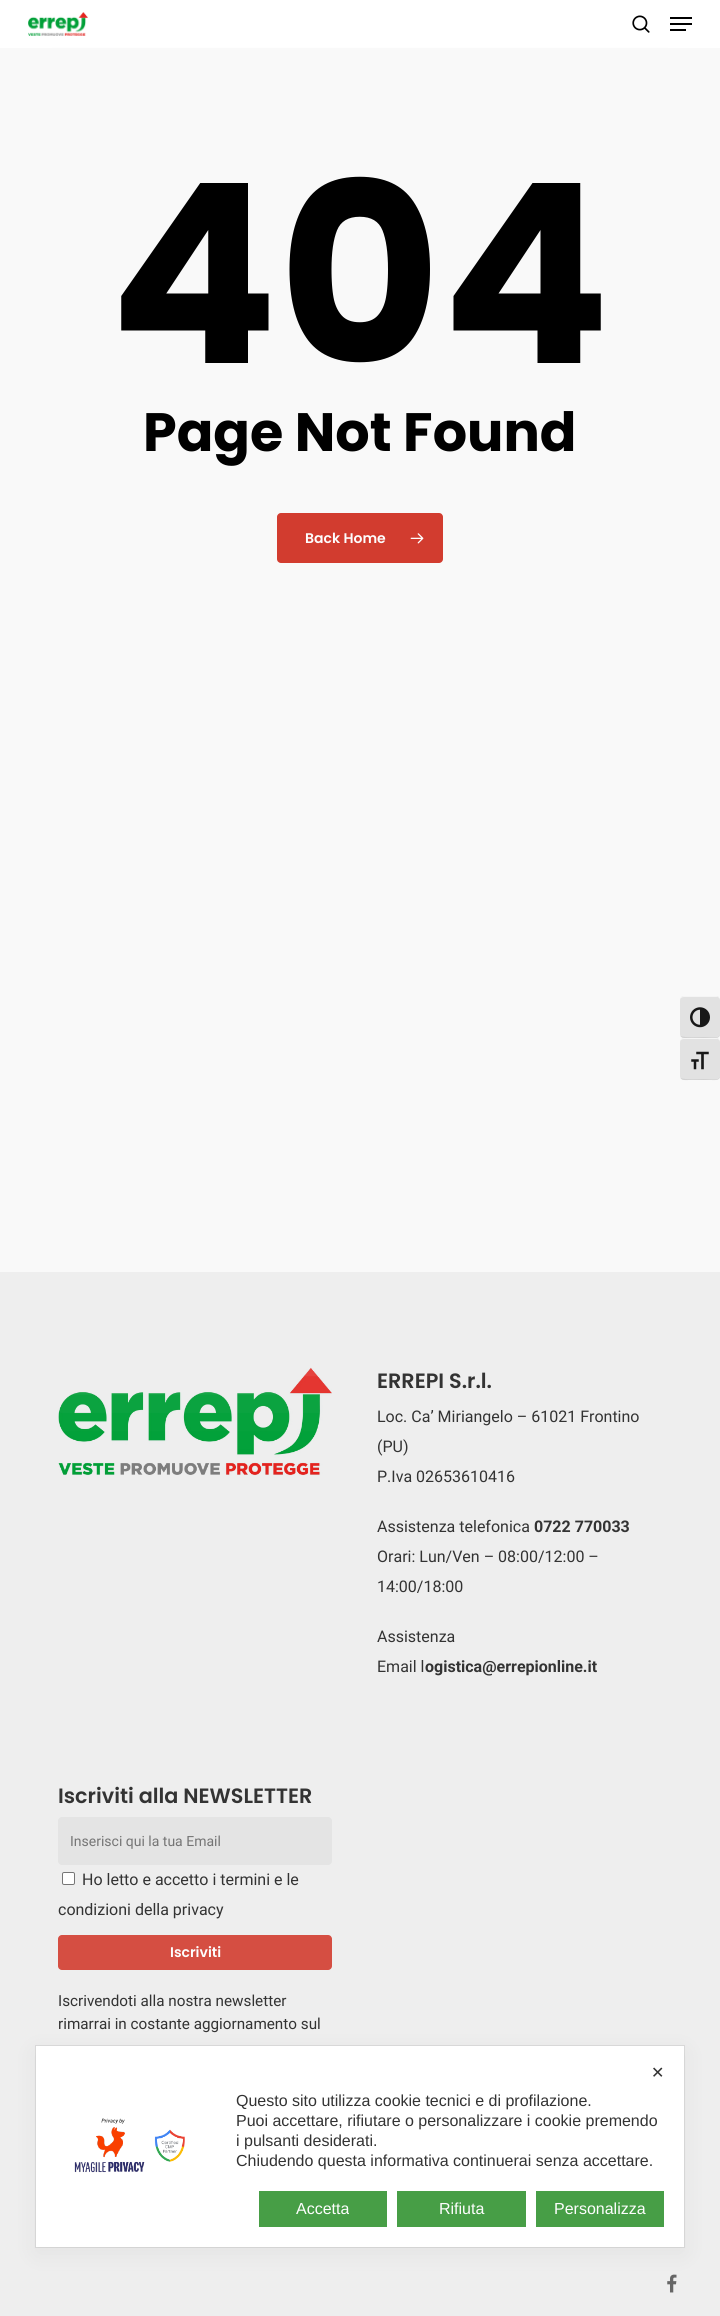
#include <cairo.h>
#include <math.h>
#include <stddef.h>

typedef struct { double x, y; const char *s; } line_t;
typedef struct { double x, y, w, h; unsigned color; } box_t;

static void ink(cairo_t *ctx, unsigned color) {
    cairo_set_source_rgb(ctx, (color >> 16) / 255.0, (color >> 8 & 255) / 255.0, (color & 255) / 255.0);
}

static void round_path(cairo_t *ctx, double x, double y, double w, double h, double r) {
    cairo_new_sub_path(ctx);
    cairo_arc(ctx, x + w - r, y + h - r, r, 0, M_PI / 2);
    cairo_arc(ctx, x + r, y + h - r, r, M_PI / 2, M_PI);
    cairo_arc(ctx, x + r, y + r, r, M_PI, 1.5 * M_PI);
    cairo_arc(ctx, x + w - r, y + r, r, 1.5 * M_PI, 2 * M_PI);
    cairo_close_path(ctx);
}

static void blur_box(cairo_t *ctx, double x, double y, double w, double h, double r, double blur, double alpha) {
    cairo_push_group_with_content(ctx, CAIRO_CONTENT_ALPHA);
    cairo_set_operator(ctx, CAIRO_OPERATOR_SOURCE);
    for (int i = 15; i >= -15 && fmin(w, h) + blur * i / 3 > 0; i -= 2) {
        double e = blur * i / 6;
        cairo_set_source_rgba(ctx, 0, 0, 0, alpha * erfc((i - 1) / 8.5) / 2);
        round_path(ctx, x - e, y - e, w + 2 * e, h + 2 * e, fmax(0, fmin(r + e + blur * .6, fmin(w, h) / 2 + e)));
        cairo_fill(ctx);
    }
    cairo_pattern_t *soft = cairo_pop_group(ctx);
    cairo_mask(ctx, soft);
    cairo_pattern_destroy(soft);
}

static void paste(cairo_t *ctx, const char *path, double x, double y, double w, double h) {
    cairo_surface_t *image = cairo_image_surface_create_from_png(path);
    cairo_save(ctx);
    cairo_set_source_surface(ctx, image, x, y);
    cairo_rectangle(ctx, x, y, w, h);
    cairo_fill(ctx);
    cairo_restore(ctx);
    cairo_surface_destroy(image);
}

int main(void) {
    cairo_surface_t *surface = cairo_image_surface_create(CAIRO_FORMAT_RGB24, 720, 2316);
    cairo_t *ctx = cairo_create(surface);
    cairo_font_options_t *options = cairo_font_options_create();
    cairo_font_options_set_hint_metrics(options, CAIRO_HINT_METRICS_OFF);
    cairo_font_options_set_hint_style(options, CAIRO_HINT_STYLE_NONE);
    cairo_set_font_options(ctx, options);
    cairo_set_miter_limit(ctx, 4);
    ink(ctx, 0xF9F9F9);
    cairo_paint(ctx);
    ink(ctx, 0xFFFFFF);
    cairo_rectangle(ctx, 0, 0, 720, 48);
    cairo_fill(ctx);
    ink(ctx, 0xEEEEEE);
    cairo_rectangle(ctx, 0, 1272, 720, 1044);
    cairo_fill(ctx);
    paste(ctx, "media/4.png", 58, 1367, 274, 109);
    cairo_save(ctx);
    cairo_set_fill_rule(ctx, CAIRO_FILL_RULE_EVEN_ODD);
    cairo_new_path(ctx);
    cairo_move_to(ctx, 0, 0);
    cairo_line_to(ctx, 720, 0);
    cairo_line_to(ctx, 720, 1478);
    cairo_line_to(ctx, 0, 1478);
    cairo_close_path(ctx);
    cairo_move_to(ctx, 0, 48);
    cairo_line_to(ctx, 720, 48);
    cairo_line_to(ctx, 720, 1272);
    cairo_line_to(ctx, 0, 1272);
    cairo_close_path(ctx);
    cairo_clip(ctx);
    ink(ctx, 0xEEEEEE);
    blur_box(ctx, 30, 148, 660, 1164, 0, 55, 1);
    cairo_restore(ctx);
    paste(ctx, "media/1.png", 28, 12, 60, 24);
    paste(ctx, "media/2.png", 632, 15, 18, 18);
    {
        static const box_t items[] = {
            {670, 17, 22, 2, 0x000000},
            {670, 29, 16, 2, 0x000000},
            {670, 23, 22, 2, 0x000000},
        };
        for (size_t i = 0; i < sizeof items / sizeof *items; i++) {
            ink(ctx, items[i].color);
            cairo_rectangle(ctx, items[i].x, items[i].y, items[i].w, items[i].h);
            cairo_fill(ctx);
        }
    }
    cairo_select_font_face(ctx, "Poppins", CAIRO_FONT_SLANT_NORMAL, CAIRO_FONT_WEIGHT_BOLD);
    cairo_set_font_size(ctx, 250);
    cairo_move_to(ctx, 109, 363);
    cairo_show_text(ctx, "404");
    cairo_set_font_size(ctx, 54);
    cairo_move_to(ctx, 143, 451);
    cairo_show_text(ctx, "Page Not Found");
    ink(ctx, 0xD23C2F);
    round_path(ctx, 277, 513, 166, 50, 4);
    cairo_fill(ctx);
    cairo_select_font_face(ctx, "Poppins SemiBold", CAIRO_FONT_SLANT_NORMAL, CAIRO_FONT_WEIGHT_NORMAL);
    cairo_set_font_size(ctx, 14);
    ink(ctx, 0xFDFDFD);
    cairo_move_to(ctx, 305, 543);
    cairo_show_text(ctx, "Back Home");
    paste(ctx, "media/3.png", 410, 533, 14, 11);
    cairo_set_font_size(ctx, 20.75);
    ink(ctx, 0x333333);
    cairo_move_to(ctx, 377, 1388);
    cairo_show_text(ctx, "ERREPI S.r.l.");
    cairo_select_font_face(ctx, "Roboto", CAIRO_FONT_SLANT_NORMAL, CAIRO_FONT_WEIGHT_NORMAL);
    cairo_set_font_size(ctx, 16);
    {
        static const line_t items[] = {
            {377, 1422, "Loc. Ca’ Miriangelo – 61021 Frontino"},
            {377, 1452, "(PU)"},
            {377, 1482, "P.Iva 02653610416"},
            {377, 1532, "Assistenza telefonica"},
        };
        for (size_t i = 0; i < sizeof items / sizeof *items; i++) {
            cairo_move_to(ctx, items[i].x, items[i].y);
            cairo_show_text(ctx, items[i].s);
        }
    }
    cairo_select_font_face(ctx, "Roboto", CAIRO_FONT_SLANT_NORMAL, CAIRO_FONT_WEIGHT_BOLD);
    cairo_move_to(ctx, 534, 1532);
    cairo_show_text(ctx, "0722 770033");
    cairo_select_font_face(ctx, "Roboto", CAIRO_FONT_SLANT_NORMAL, CAIRO_FONT_WEIGHT_NORMAL);
    {
        static const line_t items[] = {
            {377, 1562, "Orari: Lun/Ven – 08:00/12:00 –"},
            {377, 1592, "14:00/18:00"},
            {377, 1642, "Assistenza"},
            {377, 1672, "Email l"},
        };
        for (size_t i = 0; i < sizeof items / sizeof *items; i++) {
            cairo_move_to(ctx, items[i].x, items[i].y);
            cairo_show_text(ctx, items[i].s);
        }
    }
    cairo_select_font_face(ctx, "Roboto", CAIRO_FONT_SLANT_NORMAL, CAIRO_FONT_WEIGHT_BOLD);
    cairo_move_to(ctx, 425, 1672);
    cairo_show_text(ctx, "ogistica@errepionline.it");
    cairo_select_font_face(ctx, "Poppins SemiBold", CAIRO_FONT_SLANT_NORMAL, CAIRO_FONT_WEIGHT_NORMAL);
    cairo_set_font_size(ctx, 20.75);
    cairo_move_to(ctx, 58, 1803);
    cairo_show_text(ctx, "Iscriviti alla NEWSLETTER");
    ink(ctx, 0xE4E4E4);
    round_path(ctx, 58, 1817, 274, 48, 4);
    cairo_fill(ctx);
    cairo_select_font_face(ctx, "Roboto", CAIRO_FONT_SLANT_NORMAL, CAIRO_FONT_WEIGHT_NORMAL);
    cairo_set_font_size(ctx, 14);
    ink(ctx, 0x757575);
    cairo_move_to(ctx, 70, 1846);
    cairo_show_text(ctx, "Inserisci qui la tua Email");
    ink(ctx, 0xFFFFFF);
    round_path(ctx, 62.5, 1872.5, 12, 12, 1.5);
    cairo_fill_preserve(ctx);
    ink(ctx, 0x767676);
    cairo_set_line_width(ctx, 1);
    cairo_stroke(ctx);
    cairo_set_font_size(ctx, 16);
    ink(ctx, 0x333333);
    cairo_move_to(ctx, 82, 1885);
    cairo_show_text(ctx, "Ho letto e accetto i termini e le");
    cairo_move_to(ctx, 58, 1915);
    cairo_show_text(ctx, "condizioni della privacy");
    ink(ctx, 0xD54E42);
    round_path(ctx, 58, 1935, 274, 35, 4);
    cairo_fill(ctx);
    cairo_select_font_face(ctx, "Poppins SemiBold", CAIRO_FONT_SLANT_NORMAL, CAIRO_FONT_WEIGHT_NORMAL);
    cairo_set_font_size(ctx, 14);
    ink(ctx, 0xFDFDFD);
    cairo_move_to(ctx, 170, 1957);
    cairo_show_text(ctx, "Iscriviti");
    cairo_select_font_face(ctx, "Roboto", CAIRO_FONT_SLANT_NORMAL, CAIRO_FONT_WEIGHT_NORMAL);
    cairo_set_font_size(ctx, 15.25);
    ink(ctx, 0x333333);
    cairo_move_to(ctx, 58, 2006);
    cairo_show_text(ctx, "Iscrivendoti alla nostra newsletter");
    cairo_move_to(ctx, 58, 2029);
    cairo_show_text(ctx, "rimarrai in costante aggiornamento sul");
    paste(ctx, "media/5.png", 667, 2274, 10, 19);
    ink(ctx, 0xE2E2E2);
    round_path(ctx, 680, 996, 40, 42, 4);
    cairo_fill(ctx);
    ink(ctx, 0xF5F5F5);
    cairo_set_fill_rule(ctx, CAIRO_FILL_RULE_EVEN_ODD);
    cairo_new_path(ctx);
    cairo_move_to(ctx, 684, 996);
    cairo_curve_to(ctx, 681, 996, 680, 998, 680, 1001);
    cairo_curve_to(ctx, 680, 999, 681, 997, 684, 997);
    cairo_line_to(ctx, 718, 997);
    cairo_line_to(ctx, 720, 999);
    cairo_curve_to(ctx, 719, 997, 718, 996, 716, 996);
    cairo_close_path(ctx);
    cairo_move_to(ctx, 720, 999);
    cairo_line_to(ctx, 720, 1000);
    cairo_close_path(ctx);
    cairo_fill(ctx);
    ink(ctx, 0xD2D2D2);
    cairo_set_fill_rule(ctx, CAIRO_FILL_RULE_WINDING);
    cairo_new_path(ctx);
    cairo_move_to(ctx, 720, 1034);
    cairo_curve_to(ctx, 720, 1035, 719, 1036, 718, 1037);
    cairo_curve_to(ctx, 714, 1038, 708, 1037, 704, 1037);
    cairo_curve_to(ctx, 702, 1037, 684, 1038, 681, 1036);
    cairo_curve_to(ctx, 680, 1036, 680, 1035, 680, 1034);
    cairo_curve_to(ctx, 680, 1039, 686, 1038, 689, 1038);
    cairo_line_to(ctx, 711, 1038);
    cairo_curve_to(ctx, 714, 1038, 720, 1039, 720, 1034);
    cairo_close_path(ctx);
    cairo_fill(ctx);
    paste(ctx, "media/6.png", 690, 1007, 20, 21);
    ink(ctx, 0xE2E2E2);
    round_path(ctx, 680, 1038, 40, 42, 4);
    cairo_fill(ctx);
    ink(ctx, 0xF5F5F5);
    cairo_set_fill_rule(ctx, CAIRO_FILL_RULE_EVEN_ODD);
    cairo_new_path(ctx);
    cairo_move_to(ctx, 684, 1038);
    cairo_curve_to(ctx, 681, 1038, 680, 1040, 680, 1043);
    cairo_curve_to(ctx, 680, 1041, 681, 1039, 684, 1039);
    cairo_line_to(ctx, 718, 1039);
    cairo_line_to(ctx, 720, 1041);
    cairo_curve_to(ctx, 719, 1039, 718, 1038, 716, 1038);
    cairo_close_path(ctx);
    cairo_move_to(ctx, 720, 1041);
    cairo_line_to(ctx, 720, 1042);
    cairo_close_path(ctx);
    cairo_fill(ctx);
    ink(ctx, 0xD2D2D2);
    cairo_set_fill_rule(ctx, CAIRO_FILL_RULE_WINDING);
    cairo_new_path(ctx);
    cairo_move_to(ctx, 720, 1076);
    cairo_curve_to(ctx, 720, 1077, 719, 1078, 718, 1079);
    cairo_curve_to(ctx, 714, 1080, 708, 1079, 704, 1079);
    cairo_curve_to(ctx, 702, 1079, 684, 1080, 681, 1078);
    cairo_curve_to(ctx, 680, 1078, 680, 1077, 680, 1076);
    cairo_curve_to(ctx, 680, 1081, 686, 1080, 689, 1080);
    cairo_line_to(ctx, 711, 1080);
    cairo_curve_to(ctx, 714, 1080, 720, 1081, 720, 1076);
    cairo_close_path(ctx);
    cairo_fill(ctx);
    paste(ctx, "media/7.png", 691, 1051, 18, 19);
    cairo_rectangle(ctx, 35.5, 2045.5, 649, 202);
    cairo_set_source_rgba(ctx, 0, 0, 0, 0.08);
    cairo_stroke(ctx);
    ink(ctx, 0x000000);
    blur_box(ctx, 36, 2052, 648, 201, 0, 12, 0.05);
    ink(ctx, 0xFFFFFF);
    cairo_rectangle(ctx, 36, 2046, 648, 201);
    cairo_fill(ctx);
    cairo_select_font_face(ctx, "DejaVu Sans", CAIRO_FONT_SLANT_NORMAL, CAIRO_FONT_WEIGHT_NORMAL);
    cairo_set_font_size(ctx, 16);
    ink(ctx, 0x333333);
    cairo_move_to(ctx, 651, 2078);
    cairo_show_text(ctx, "✕");
    paste(ctx, "media/8.png", 74, 2118, 111, 55);
    cairo_select_font_face(ctx, "Liberation Sans", CAIRO_FONT_SLANT_NORMAL, CAIRO_FONT_WEIGHT_NORMAL);
    {
        static const line_t items[] = {
            {236, 2106, "Questo sito utilizza cookie tecnici e di profilazione."},
            {236, 2126, "Puoi accettare, rifiutare o personalizzare i cookie premendo"},
            {236, 2146, "i pulsanti desiderati."},
            {236, 2166, "Chiudendo questa informativa continuerai senza accettare."},
        };
        for (size_t i = 0; i < sizeof items / sizeof *items; i++) {
            cairo_move_to(ctx, items[i].x, items[i].y);
            cairo_show_text(ctx, items[i].s);
        }
    }
    ink(ctx, 0x479E46);
    cairo_rectangle(ctx, 259, 2191, 128, 36);
    cairo_fill(ctx);
    ink(ctx, 0xFDFDFD);
    cairo_move_to(ctx, 296, 2214);
    cairo_show_text(ctx, "Accetta");
    ink(ctx, 0x479E46);
    cairo_rectangle(ctx, 397, 2191, 129, 36);
    cairo_fill(ctx);
    ink(ctx, 0xFDFDFD);
    cairo_move_to(ctx, 439, 2214);
    cairo_show_text(ctx, "Rifiuta");
    ink(ctx, 0x479E46);
    cairo_rectangle(ctx, 536, 2191, 128, 36);
    cairo_fill(ctx);
    ink(ctx, 0xFDFDFD);
    cairo_move_to(ctx, 554, 2214);
    cairo_show_text(ctx, "Personalizza");
    cairo_surface_write_to_png(surface, "image.png");
    cairo_font_options_destroy(options);
    cairo_destroy(ctx);
    cairo_surface_destroy(surface);
    return 0;
}
